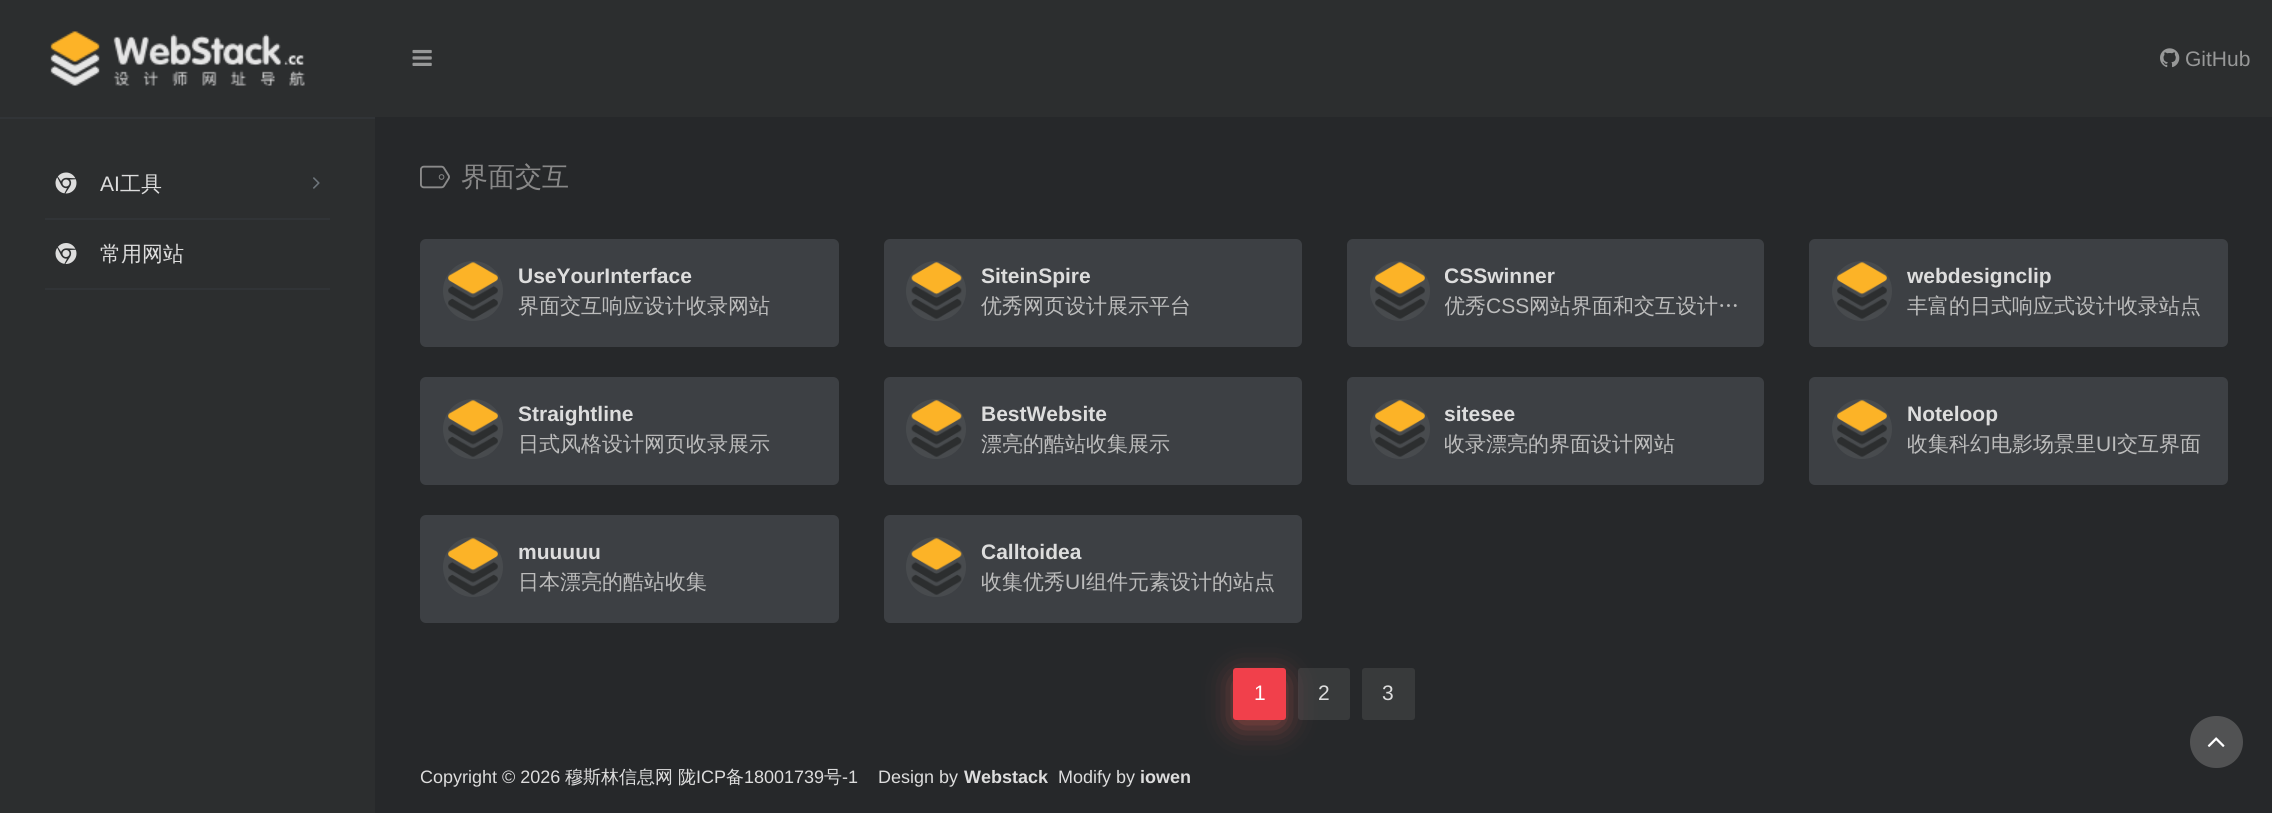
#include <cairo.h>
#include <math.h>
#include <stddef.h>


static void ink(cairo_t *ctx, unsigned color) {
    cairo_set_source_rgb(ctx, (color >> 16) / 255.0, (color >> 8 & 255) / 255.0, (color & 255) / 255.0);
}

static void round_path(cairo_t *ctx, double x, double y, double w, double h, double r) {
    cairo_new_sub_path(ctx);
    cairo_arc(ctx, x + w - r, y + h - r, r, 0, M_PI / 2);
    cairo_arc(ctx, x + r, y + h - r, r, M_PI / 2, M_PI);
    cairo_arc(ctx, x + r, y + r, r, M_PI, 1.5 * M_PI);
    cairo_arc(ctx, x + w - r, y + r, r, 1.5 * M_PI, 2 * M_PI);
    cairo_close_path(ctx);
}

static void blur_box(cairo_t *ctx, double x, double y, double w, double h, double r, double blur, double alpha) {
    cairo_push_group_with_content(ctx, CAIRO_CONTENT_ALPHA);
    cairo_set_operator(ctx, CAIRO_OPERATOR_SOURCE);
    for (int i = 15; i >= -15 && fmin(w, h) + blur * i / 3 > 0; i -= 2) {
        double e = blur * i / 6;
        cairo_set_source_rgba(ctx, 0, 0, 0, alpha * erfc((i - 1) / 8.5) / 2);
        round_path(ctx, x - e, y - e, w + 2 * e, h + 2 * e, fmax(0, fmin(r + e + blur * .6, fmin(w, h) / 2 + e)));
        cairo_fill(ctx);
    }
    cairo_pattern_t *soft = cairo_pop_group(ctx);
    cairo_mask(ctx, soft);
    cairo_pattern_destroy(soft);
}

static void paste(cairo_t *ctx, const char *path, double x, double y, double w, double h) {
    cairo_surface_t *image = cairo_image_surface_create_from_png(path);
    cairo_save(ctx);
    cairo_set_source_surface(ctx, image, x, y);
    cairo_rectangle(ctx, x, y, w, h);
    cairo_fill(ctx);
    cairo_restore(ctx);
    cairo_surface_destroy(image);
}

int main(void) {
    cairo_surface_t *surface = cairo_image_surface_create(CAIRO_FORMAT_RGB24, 2272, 813);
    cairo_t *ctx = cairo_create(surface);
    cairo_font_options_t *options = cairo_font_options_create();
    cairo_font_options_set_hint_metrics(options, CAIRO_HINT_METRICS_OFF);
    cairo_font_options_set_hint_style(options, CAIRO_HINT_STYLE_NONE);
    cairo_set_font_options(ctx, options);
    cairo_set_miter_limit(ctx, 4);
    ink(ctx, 0x26282A);
    cairo_paint(ctx);
    ink(ctx, 0x2C2E2F);
    cairo_rectangle(ctx, 0, 0, 375, 813);
    cairo_fill(ctx);
    ink(ctx, 0x313437);
    cairo_rectangle(ctx, 0, 117, 375, 2);
    cairo_fill(ctx);
    paste(ctx, "media/1.png", 50, 31, 255, 55);
    cairo_rectangle(ctx, 45, 218, 285, 2);
    cairo_fill(ctx);
    paste(ctx, "media/2.png", 55, 172, 22, 22);
    cairo_select_font_face(ctx, "Liberation Sans", CAIRO_FONT_SLANT_NORMAL, CAIRO_FONT_WEIGHT_NORMAL);
    cairo_set_font_size(ctx, 21);
    ink(ctx, 0xDDDDDD);
    cairo_move_to(ctx, 100, 191);
    cairo_show_text(ctx, "AI");
    cairo_select_font_face(ctx, "WenQuanYi Zen Hei Medium", CAIRO_FONT_SLANT_NORMAL, CAIRO_FONT_WEIGHT_NORMAL);
    cairo_move_to(ctx, 120, 191);
    cairo_show_text(ctx, "工具");
    paste(ctx, "media/3.png", 313, 177, 7, 12);
    ink(ctx, 0x313437);
    cairo_rectangle(ctx, 45, 288, 285, 2);
    cairo_fill(ctx);
    paste(ctx, "media/4.png", 55, 243, 22, 21);
    ink(ctx, 0xDDDDDD);
    cairo_move_to(ctx, 100, 261);
    cairo_show_text(ctx, "常用网站");
    ink(ctx, 0x2C2E2F);
    cairo_rectangle(ctx, 375, 0, 1897, 117);
    cairo_fill(ctx);
    paste(ctx, "media/5.png", 412, 49, 20, 17);
    paste(ctx, "media/6.png", 2160, 48, 20, 20);
    cairo_select_font_face(ctx, "Liberation Sans", CAIRO_FONT_SLANT_NORMAL, CAIRO_FONT_WEIGHT_NORMAL);
    ink(ctx, 0x979898);
    cairo_move_to(ctx, 2185, 66);
    cairo_show_text(ctx, "GitHub");
    paste(ctx, "media/7.png", 420, 165, 30, 24);
    cairo_select_font_face(ctx, "WenQuanYi Zen Hei Medium", CAIRO_FONT_SLANT_NORMAL, CAIRO_FONT_WEIGHT_NORMAL);
    cairo_set_font_size(ctx, 27);
    ink(ctx, 0x888888);
    cairo_move_to(ctx, 461, 186);
    cairo_show_text(ctx, "界面交互");
    ink(ctx, 0x3D4044);
    round_path(ctx, 420, 239, 419, 108, 6);
    cairo_fill(ctx);
    ink(ctx, 0x484B4E);
    cairo_arc(ctx, 473, 291, 30, 0, 2 * M_PI);
    cairo_fill(ctx);
    paste(ctx, "media/8.png", 448, 262, 50, 57);
    cairo_select_font_face(ctx, "Liberation Sans", CAIRO_FONT_SLANT_NORMAL, CAIRO_FONT_WEIGHT_BOLD);
    cairo_set_font_size(ctx, 21);
    ink(ctx, 0xDDDDDD);
    cairo_move_to(ctx, 518, 283);
    cairo_show_text(ctx, "UseYourInterface");
    cairo_select_font_face(ctx, "WenQuanYi Zen Hei Medium", CAIRO_FONT_SLANT_NORMAL, CAIRO_FONT_WEIGHT_NORMAL);
    ink(ctx, 0xBCBCBC);
    cairo_move_to(ctx, 518, 313);
    cairo_show_text(ctx, "界面交互响应设计收录网站");
    ink(ctx, 0x3D4044);
    round_path(ctx, 884, 239, 418, 108, 6);
    cairo_fill(ctx);
    ink(ctx, 0x484B4E);
    cairo_arc(ctx, 936, 291, 30, 0, 2 * M_PI);
    cairo_fill(ctx);
    paste(ctx, "media/9.png", 911, 262, 51, 57);
    cairo_select_font_face(ctx, "Liberation Sans", CAIRO_FONT_SLANT_NORMAL, CAIRO_FONT_WEIGHT_BOLD);
    ink(ctx, 0xDDDDDD);
    cairo_move_to(ctx, 981, 283);
    cairo_show_text(ctx, "SiteinSpire");
    cairo_select_font_face(ctx, "WenQuanYi Zen Hei Medium", CAIRO_FONT_SLANT_NORMAL, CAIRO_FONT_WEIGHT_NORMAL);
    ink(ctx, 0xBCBCBC);
    cairo_move_to(ctx, 981, 313);
    cairo_show_text(ctx, "优秀网页设计展示平台");
    ink(ctx, 0x3D4044);
    round_path(ctx, 1347, 239, 417, 108, 6);
    cairo_fill(ctx);
    ink(ctx, 0x484B4E);
    cairo_arc(ctx, 1400, 291, 30, 0, 2 * M_PI);
    cairo_fill(ctx);
    paste(ctx, "media/10.png", 1375, 262, 50, 57);
    cairo_save(ctx);
    cairo_rectangle(ctx, 1445, 261, 297, 30);
    cairo_clip(ctx);
    cairo_select_font_face(ctx, "Liberation Sans", CAIRO_FONT_SLANT_NORMAL, CAIRO_FONT_WEIGHT_BOLD);
    ink(ctx, 0xDDDDDD);
    cairo_move_to(ctx, 1444, 283);
    cairo_show_text(ctx, "CSSwinner");
    cairo_restore(ctx);
    cairo_save(ctx);
    cairo_rectangle(ctx, 1445, 291, 297, 30);
    cairo_clip(ctx);
    ink(ctx, 0xBCBCBC);
    cairo_move_to(ctx, 1444, 313);
    cairo_show_text(ctx, "优秀");
    cairo_restore(ctx);
    cairo_select_font_face(ctx, "Liberation Sans", CAIRO_FONT_SLANT_NORMAL, CAIRO_FONT_WEIGHT_NORMAL);
    ink(ctx, 0xBCBCBC);
    cairo_move_to(ctx, 1486, 313);
    cairo_show_text(ctx, "CSS");
    cairo_select_font_face(ctx, "WenQuanYi Zen Hei Medium", CAIRO_FONT_SLANT_NORMAL, CAIRO_FONT_WEIGHT_NORMAL);
    cairo_move_to(ctx, 1529, 313);
    cairo_show_text(ctx, "网站界面和交互设计…");
    ink(ctx, 0x3D4044);
    round_path(ctx, 1809, 239, 419, 108, 6);
    cairo_fill(ctx);
    ink(ctx, 0x484B4E);
    cairo_arc(ctx, 1862, 291, 30, 0, 2 * M_PI);
    cairo_fill(ctx);
    paste(ctx, "media/11.png", 1837, 262, 50, 57);
    cairo_select_font_face(ctx, "Liberation Sans", CAIRO_FONT_SLANT_NORMAL, CAIRO_FONT_WEIGHT_BOLD);
    ink(ctx, 0xDDDDDD);
    cairo_move_to(ctx, 1907, 283);
    cairo_show_text(ctx, "webdesignclip");
    cairo_select_font_face(ctx, "WenQuanYi Zen Hei Medium", CAIRO_FONT_SLANT_NORMAL, CAIRO_FONT_WEIGHT_NORMAL);
    ink(ctx, 0xBCBCBC);
    cairo_move_to(ctx, 1907, 313);
    cairo_show_text(ctx, "丰富的日式响应式设计收录站点");
    ink(ctx, 0x3D4044);
    round_path(ctx, 420, 377, 419, 108, 6);
    cairo_fill(ctx);
    ink(ctx, 0x484B4E);
    cairo_arc(ctx, 473, 429, 30, 0, 2 * M_PI);
    cairo_fill(ctx);
    paste(ctx, "media/8.png", 448, 400, 50, 57);
    cairo_select_font_face(ctx, "Liberation Sans", CAIRO_FONT_SLANT_NORMAL, CAIRO_FONT_WEIGHT_BOLD);
    ink(ctx, 0xDDDDDD);
    cairo_move_to(ctx, 518, 421);
    cairo_show_text(ctx, "Straightline");
    cairo_select_font_face(ctx, "WenQuanYi Zen Hei Medium", CAIRO_FONT_SLANT_NORMAL, CAIRO_FONT_WEIGHT_NORMAL);
    ink(ctx, 0xBCBCBC);
    cairo_move_to(ctx, 518, 451);
    cairo_show_text(ctx, "日式风格设计网页收录展示");
    ink(ctx, 0x3D4044);
    round_path(ctx, 884, 377, 418, 108, 6);
    cairo_fill(ctx);
    ink(ctx, 0x484B4E);
    cairo_arc(ctx, 936, 429, 30, 0, 2 * M_PI);
    cairo_fill(ctx);
    paste(ctx, "media/9.png", 911, 400, 51, 57);
    cairo_select_font_face(ctx, "Liberation Sans", CAIRO_FONT_SLANT_NORMAL, CAIRO_FONT_WEIGHT_BOLD);
    ink(ctx, 0xDDDDDD);
    cairo_move_to(ctx, 981, 421);
    cairo_show_text(ctx, "BestWebsite");
    cairo_select_font_face(ctx, "WenQuanYi Zen Hei Medium", CAIRO_FONT_SLANT_NORMAL, CAIRO_FONT_WEIGHT_NORMAL);
    ink(ctx, 0xBCBCBC);
    cairo_move_to(ctx, 981, 451);
    cairo_show_text(ctx, "漂亮的酷站收集展示");
    ink(ctx, 0x3D4044);
    round_path(ctx, 1347, 377, 417, 108, 6);
    cairo_fill(ctx);
    ink(ctx, 0x484B4E);
    cairo_arc(ctx, 1400, 429, 30, 0, 2 * M_PI);
    cairo_fill(ctx);
    paste(ctx, "media/10.png", 1375, 400, 50, 57);
    cairo_select_font_face(ctx, "Liberation Sans", CAIRO_FONT_SLANT_NORMAL, CAIRO_FONT_WEIGHT_BOLD);
    ink(ctx, 0xDDDDDD);
    cairo_move_to(ctx, 1444, 421);
    cairo_show_text(ctx, "sitesee");
    cairo_save(ctx);
    cairo_rectangle(ctx, 1445, 429, 297, 30);
    cairo_clip(ctx);
    cairo_select_font_face(ctx, "WenQuanYi Zen Hei Medium", CAIRO_FONT_SLANT_NORMAL, CAIRO_FONT_WEIGHT_NORMAL);
    ink(ctx, 0xBCBCBC);
    cairo_move_to(ctx, 1444, 451);
    cairo_show_text(ctx, "收录漂亮的界面设计网站");
    cairo_restore(ctx);
    ink(ctx, 0x3D4044);
    round_path(ctx, 1809, 377, 419, 108, 6);
    cairo_fill(ctx);
    ink(ctx, 0x484B4E);
    cairo_arc(ctx, 1862, 429, 30, 0, 2 * M_PI);
    cairo_fill(ctx);
    paste(ctx, "media/11.png", 1837, 400, 50, 57);
    ink(ctx, 0xDDDDDD);
    cairo_move_to(ctx, 1907, 421);
    cairo_show_text(ctx, "Noteloop");
    cairo_select_font_face(ctx, "WenQuanYi Zen Hei Medium", CAIRO_FONT_SLANT_NORMAL, CAIRO_FONT_WEIGHT_NORMAL);
    ink(ctx, 0xBCBCBC);
    cairo_move_to(ctx, 1907, 451);
    cairo_show_text(ctx, "收集科幻电影场景里");
    cairo_select_font_face(ctx, "Liberation Sans", CAIRO_FONT_SLANT_NORMAL, CAIRO_FONT_WEIGHT_NORMAL);
    cairo_move_to(ctx, 2096, 451);
    cairo_show_text(ctx, "UI");
    cairo_select_font_face(ctx, "WenQuanYi Zen Hei Medium", CAIRO_FONT_SLANT_NORMAL, CAIRO_FONT_WEIGHT_NORMAL);
    cairo_move_to(ctx, 2117, 451);
    cairo_show_text(ctx, "交互界面");
    ink(ctx, 0x3D4044);
    round_path(ctx, 420, 515, 419, 108, 6);
    cairo_fill(ctx);
    ink(ctx, 0x484B4E);
    cairo_arc(ctx, 473, 567, 30, 0, 2 * M_PI);
    cairo_fill(ctx);
    paste(ctx, "media/8.png", 448, 538, 50, 57);
    cairo_select_font_face(ctx, "Liberation Sans", CAIRO_FONT_SLANT_NORMAL, CAIRO_FONT_WEIGHT_BOLD);
    ink(ctx, 0xDDDDDD);
    cairo_move_to(ctx, 518, 559);
    cairo_show_text(ctx, "muuuuu");
    cairo_select_font_face(ctx, "WenQuanYi Zen Hei Medium", CAIRO_FONT_SLANT_NORMAL, CAIRO_FONT_WEIGHT_NORMAL);
    ink(ctx, 0xBCBCBC);
    cairo_move_to(ctx, 518, 589);
    cairo_show_text(ctx, "日本漂亮的酷站收集");
    ink(ctx, 0x3D4044);
    round_path(ctx, 884, 515, 418, 108, 6);
    cairo_fill(ctx);
    ink(ctx, 0x484B4E);
    cairo_arc(ctx, 936, 567, 30, 0, 2 * M_PI);
    cairo_fill(ctx);
    paste(ctx, "media/9.png", 911, 538, 51, 57);
    cairo_select_font_face(ctx, "Liberation Sans", CAIRO_FONT_SLANT_NORMAL, CAIRO_FONT_WEIGHT_BOLD);
    ink(ctx, 0xDDDDDD);
    cairo_move_to(ctx, 981, 559);
    cairo_show_text(ctx, "Calltoidea");
    cairo_select_font_face(ctx, "WenQuanYi Zen Hei Medium", CAIRO_FONT_SLANT_NORMAL, CAIRO_FONT_WEIGHT_NORMAL);
    ink(ctx, 0xBCBCBC);
    cairo_move_to(ctx, 981, 589);
    cairo_show_text(ctx, "收集优秀");
    cairo_select_font_face(ctx, "Liberation Sans", CAIRO_FONT_SLANT_NORMAL, CAIRO_FONT_WEIGHT_NORMAL);
    cairo_move_to(ctx, 1065, 589);
    cairo_show_text(ctx, "UI");
    cairo_select_font_face(ctx, "WenQuanYi Zen Hei Medium", CAIRO_FONT_SLANT_NORMAL, CAIRO_FONT_WEIGHT_NORMAL);
    cairo_move_to(ctx, 1086, 589);
    cairo_show_text(ctx, "组件元素设计的站点");
    ink(ctx, 0xF9645A);
    blur_box(ctx, 1238, 680, 43, 43, 0, 15, 0.6);
    ink(ctx, 0xF1404B);
    round_path(ctx, 1233, 668, 53, 52, 3);
    cairo_fill(ctx);
    cairo_select_font_face(ctx, "Liberation Sans", CAIRO_FONT_SLANT_NORMAL, CAIRO_FONT_WEIGHT_NORMAL);
    ink(ctx, 0xFFFFFF);
    cairo_move_to(ctx, 1254, 700);
    cairo_show_text(ctx, "1");
    cairo_set_source_rgba(ctx, 0.588, 0.588, 0.588, 0.16);
    round_path(ctx, 1298, 668, 52, 52, 3);
    cairo_fill(ctx);
    ink(ctx, 0xDDDDDD);
    cairo_move_to(ctx, 1318, 700);
    cairo_show_text(ctx, "2");
    ink(ctx, 0x383A3B);
    round_path(ctx, 1362, 668, 53, 52, 3);
    cairo_fill(ctx);
    ink(ctx, 0xDDDDDD);
    cairo_move_to(ctx, 1382, 700);
    cairo_show_text(ctx, "3");
    ink(ctx, 0x515253);
    round_path(ctx, 2190, 716, 53, 52, 26);
    cairo_fill(ctx);
    paste(ctx, "media/12.png", 2207, 737, 18, 10);
    cairo_set_font_size(ctx, 18);
    ink(ctx, 0xDDDDDD);
    cairo_move_to(ctx, 420, 783);
    cairo_show_text(ctx, "Copyright © 2026");
    cairo_select_font_face(ctx, "WenQuanYi Zen Hei Medium", CAIRO_FONT_SLANT_NORMAL, CAIRO_FONT_WEIGHT_NORMAL);
    cairo_move_to(ctx, 565, 783);
    cairo_show_text(ctx, "穆斯林信息网");
    cairo_move_to(ctx, 678, 783);
    cairo_show_text(ctx, "陇");
    cairo_select_font_face(ctx, "Liberation Sans", CAIRO_FONT_SLANT_NORMAL, CAIRO_FONT_WEIGHT_NORMAL);
    cairo_move_to(ctx, 696, 783);
    cairo_show_text(ctx, "ICP");
    cairo_select_font_face(ctx, "WenQuanYi Zen Hei Medium", CAIRO_FONT_SLANT_NORMAL, CAIRO_FONT_WEIGHT_NORMAL);
    cairo_move_to(ctx, 726, 783);
    cairo_show_text(ctx, "备");
    cairo_select_font_face(ctx, "Liberation Sans", CAIRO_FONT_SLANT_NORMAL, CAIRO_FONT_WEIGHT_NORMAL);
    cairo_move_to(ctx, 744, 783);
    cairo_show_text(ctx, "18001739");
    cairo_select_font_face(ctx, "WenQuanYi Zen Hei Medium", CAIRO_FONT_SLANT_NORMAL, CAIRO_FONT_WEIGHT_NORMAL);
    cairo_move_to(ctx, 824, 783);
    cairo_show_text(ctx, "号");
    cairo_select_font_face(ctx, "Liberation Sans", CAIRO_FONT_SLANT_NORMAL, CAIRO_FONT_WEIGHT_NORMAL);
    cairo_move_to(ctx, 842, 783);
    cairo_show_text(ctx, "-1");
    cairo_move_to(ctx, 878, 783);
    cairo_show_text(ctx, "Design by");
    cairo_select_font_face(ctx, "Liberation Sans", CAIRO_FONT_SLANT_NORMAL, CAIRO_FONT_WEIGHT_BOLD);
    cairo_move_to(ctx, 964, 783);
    cairo_show_text(ctx, "Webstack");
    cairo_select_font_face(ctx, "Liberation Sans", CAIRO_FONT_SLANT_NORMAL, CAIRO_FONT_WEIGHT_NORMAL);
    cairo_move_to(ctx, 1058, 783);
    cairo_show_text(ctx, "Modify by");
    cairo_select_font_face(ctx, "Liberation Sans", CAIRO_FONT_SLANT_NORMAL, CAIRO_FONT_WEIGHT_BOLD);
    cairo_move_to(ctx, 1140, 783);
    cairo_show_text(ctx, "iowen");
    cairo_surface_write_to_png(surface, "image.png");
    cairo_font_options_destroy(options);
    cairo_destroy(ctx);
    cairo_surface_destroy(surface);
    return 0;
}
